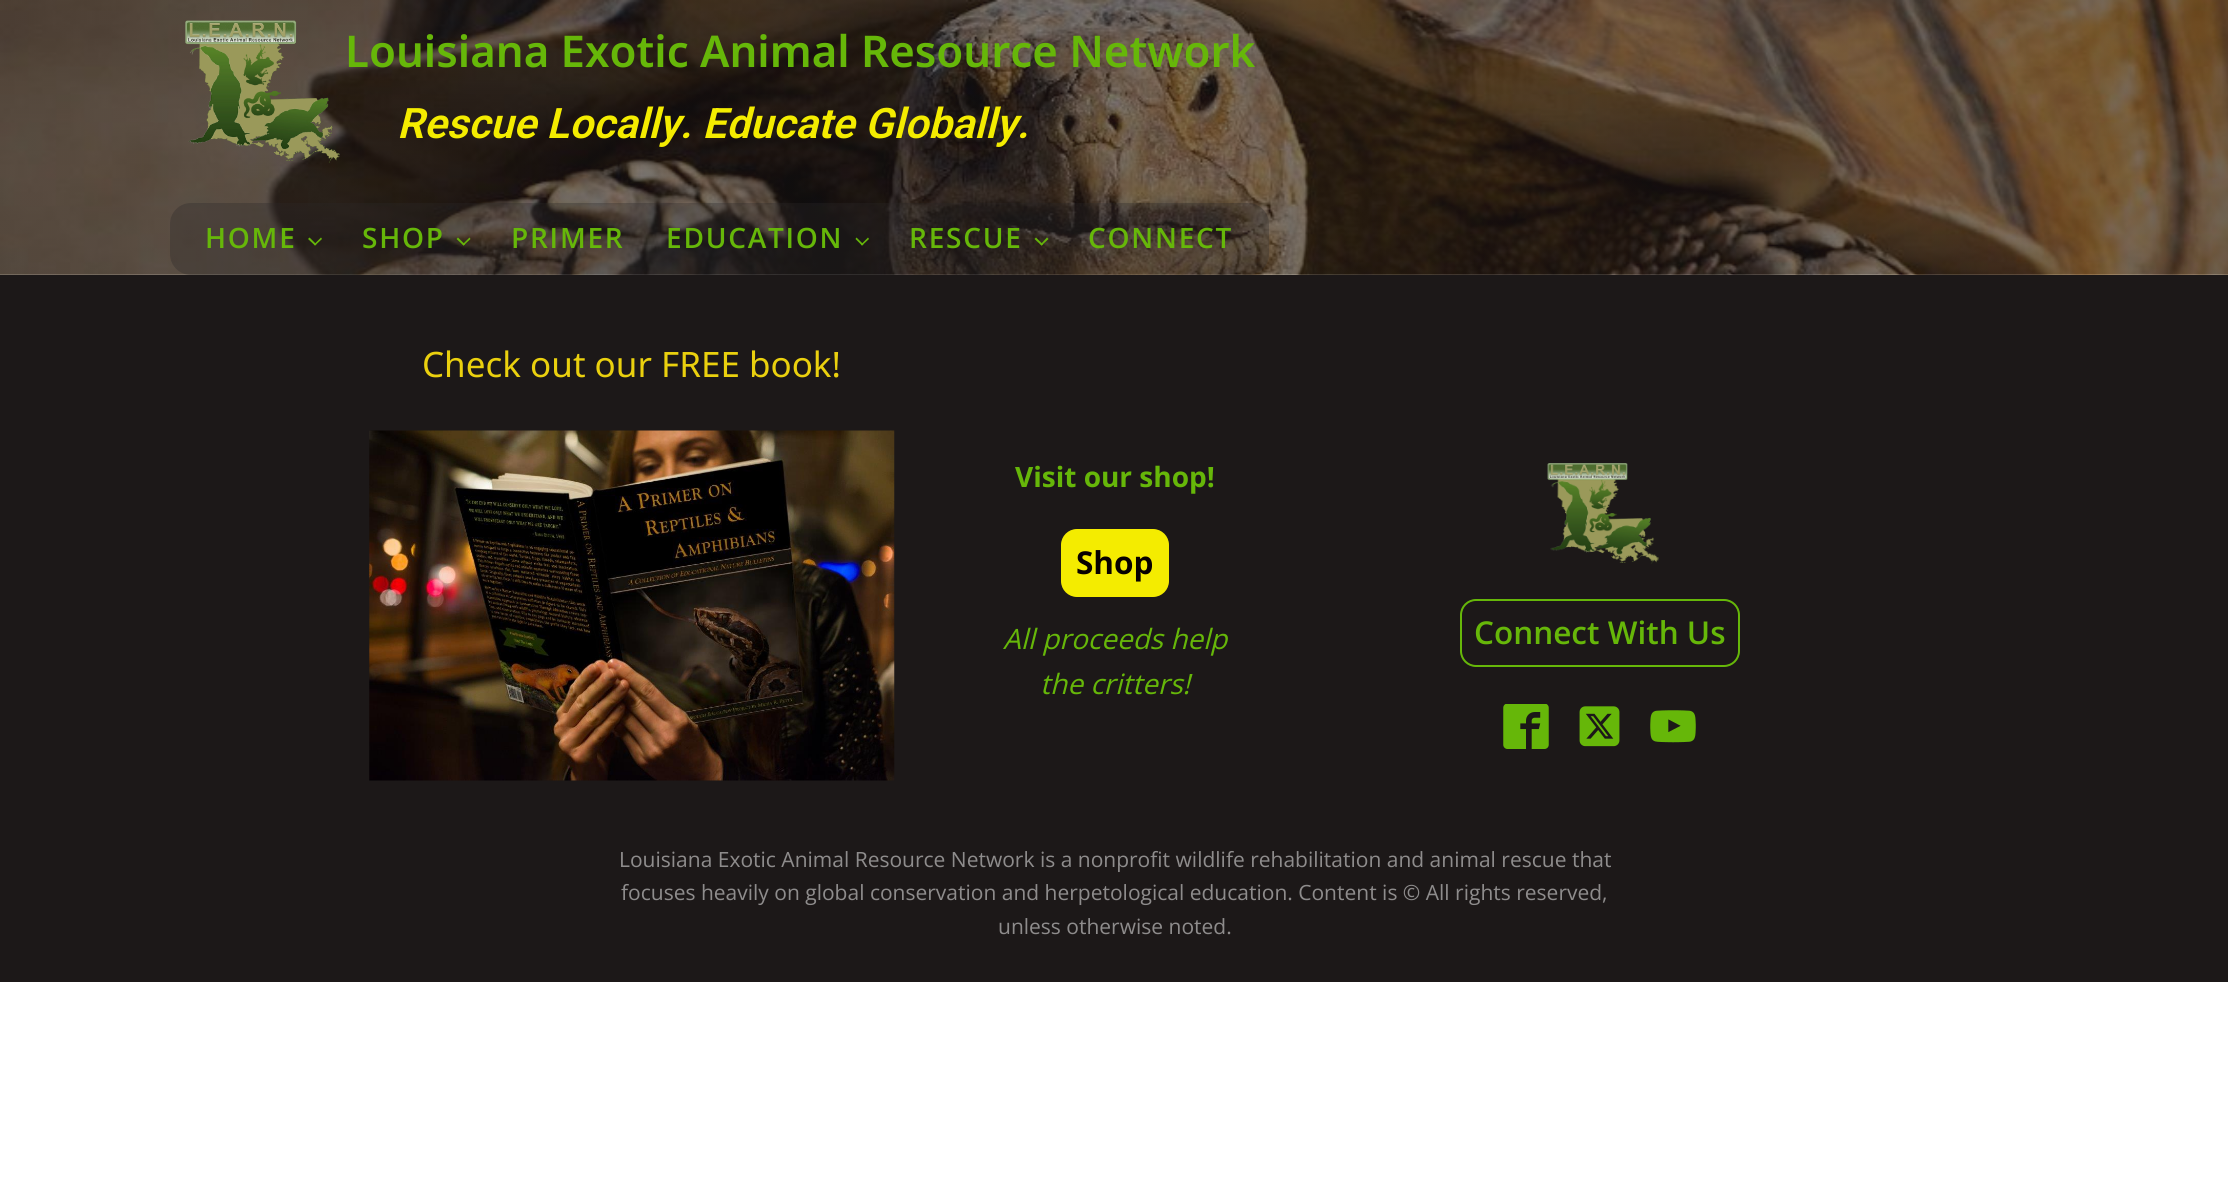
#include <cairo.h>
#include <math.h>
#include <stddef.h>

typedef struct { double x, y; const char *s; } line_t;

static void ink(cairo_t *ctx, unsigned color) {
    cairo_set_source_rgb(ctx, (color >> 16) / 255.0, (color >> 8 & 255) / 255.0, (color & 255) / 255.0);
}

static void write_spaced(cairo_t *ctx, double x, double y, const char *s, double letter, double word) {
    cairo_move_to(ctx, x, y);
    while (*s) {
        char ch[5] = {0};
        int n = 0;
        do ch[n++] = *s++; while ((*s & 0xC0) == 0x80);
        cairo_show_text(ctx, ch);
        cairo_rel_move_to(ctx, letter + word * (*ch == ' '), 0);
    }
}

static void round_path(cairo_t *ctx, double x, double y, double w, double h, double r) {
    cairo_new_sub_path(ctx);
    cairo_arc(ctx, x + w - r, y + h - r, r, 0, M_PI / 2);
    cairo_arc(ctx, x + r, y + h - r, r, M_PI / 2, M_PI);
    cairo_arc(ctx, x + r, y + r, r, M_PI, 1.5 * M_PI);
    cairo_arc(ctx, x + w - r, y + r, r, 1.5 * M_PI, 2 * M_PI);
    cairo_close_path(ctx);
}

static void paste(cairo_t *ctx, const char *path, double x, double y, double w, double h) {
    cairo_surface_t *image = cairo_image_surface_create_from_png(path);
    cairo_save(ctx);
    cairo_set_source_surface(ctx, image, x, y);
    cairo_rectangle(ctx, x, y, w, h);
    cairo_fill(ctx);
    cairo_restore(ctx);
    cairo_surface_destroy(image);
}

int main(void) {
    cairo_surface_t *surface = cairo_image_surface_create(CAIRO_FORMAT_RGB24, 2228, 1187);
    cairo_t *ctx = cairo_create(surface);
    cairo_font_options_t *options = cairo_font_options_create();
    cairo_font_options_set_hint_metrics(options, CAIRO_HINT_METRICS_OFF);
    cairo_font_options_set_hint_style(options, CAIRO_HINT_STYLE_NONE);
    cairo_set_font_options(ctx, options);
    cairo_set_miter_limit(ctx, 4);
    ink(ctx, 0xFFFFFF);
    cairo_paint(ctx);
    paste(ctx, "media/1.png", 0, 0, 2228, 275);
    paste(ctx, "media/2.png", 185, 20, 155, 143);
    cairo_select_font_face(ctx, "Noto Sans SemiBold", CAIRO_FONT_SLANT_NORMAL, CAIRO_FONT_WEIGHT_NORMAL);
    cairo_set_font_size(ctx, 43.75);
    ink(ctx, 0x66B709);
    cairo_move_to(ctx, 345, 67);
    cairo_show_text(ctx, "Louisiana Exotic Animal Resource Network");
    cairo_select_font_face(ctx, "Roboto SemiBold", CAIRO_FONT_SLANT_ITALIC, CAIRO_FONT_WEIGHT_NORMAL);
    cairo_set_font_size(ctx, 42);
    ink(ctx, 0xF4EC00);
    cairo_move_to(ctx, 397, 138);
    cairo_show_text(ctx, "Rescue Locally. Educate Globally.");
    cairo_set_source_rgba(ctx, 0.169, 0.157, 0.157, 0.33);
    round_path(ctx, 170, 203, 1099, 72, 21);
    cairo_fill(ctx);
    cairo_select_font_face(ctx, "Open Sans SemiBold", CAIRO_FONT_SLANT_NORMAL, CAIRO_FONT_WEIGHT_NORMAL);
    cairo_set_font_size(ctx, 28);
    ink(ctx, 0x66B709);
    write_spaced(ctx, 205, 248, "HOME", 1.75, 0);
    cairo_new_path(ctx);
    cairo_move_to(ctx, 322, 239);
    cairo_line_to(ctx, 315, 245.5);
    cairo_line_to(ctx, 314, 244.5);
    cairo_line_to(ctx, 321, 237.5);
    cairo_close_path(ctx);
    cairo_fill(ctx);
    cairo_new_path(ctx);
    cairo_move_to(ctx, 316.5, 244.5);
    cairo_line_to(ctx, 315, 245.5);
    cairo_line_to(ctx, 308, 239);
    cairo_line_to(ctx, 309.5, 237.5);
    cairo_close_path(ctx);
    cairo_fill(ctx);
    write_spaced(ctx, 362, 248, "SHOP", 1.75, 0);
    cairo_new_path(ctx);
    cairo_move_to(ctx, 470.5, 239);
    cairo_line_to(ctx, 463.5, 245.5);
    cairo_line_to(ctx, 462.5, 244.5);
    cairo_line_to(ctx, 469.5, 237.5);
    cairo_close_path(ctx);
    cairo_fill(ctx);
    cairo_new_path(ctx);
    cairo_move_to(ctx, 465, 244.5);
    cairo_line_to(ctx, 463.5, 245.5);
    cairo_line_to(ctx, 456.5, 239);
    cairo_line_to(ctx, 458, 237.5);
    cairo_close_path(ctx);
    cairo_fill(ctx);
    write_spaced(ctx, 511, 248, "PRIMER", 1.75, 0);
    write_spaced(ctx, 666, 248, "EDUCATION", 1.75, 0);
    cairo_new_path(ctx);
    cairo_move_to(ctx, 869, 239);
    cairo_line_to(ctx, 862, 245.5);
    cairo_line_to(ctx, 861, 244.5);
    cairo_line_to(ctx, 868, 237.5);
    cairo_close_path(ctx);
    cairo_fill(ctx);
    cairo_new_path(ctx);
    cairo_move_to(ctx, 863.5, 244.5);
    cairo_line_to(ctx, 862, 245.5);
    cairo_line_to(ctx, 855.5, 239);
    cairo_line_to(ctx, 856.5, 237.5);
    cairo_close_path(ctx);
    cairo_fill(ctx);
    write_spaced(ctx, 909, 248, "RESCUE", 1.75, 0);
    cairo_new_path(ctx);
    cairo_move_to(ctx, 1048.5, 239);
    cairo_line_to(ctx, 1041.5, 245.5);
    cairo_line_to(ctx, 1040.5, 244.5);
    cairo_line_to(ctx, 1047, 237.5);
    cairo_close_path(ctx);
    cairo_fill(ctx);
    cairo_new_path(ctx);
    cairo_move_to(ctx, 1043, 244.5);
    cairo_line_to(ctx, 1041.5, 245.5);
    cairo_line_to(ctx, 1034.5, 239);
    cairo_line_to(ctx, 1036, 237.5);
    cairo_close_path(ctx);
    cairo_fill(ctx);
    write_spaced(ctx, 1088, 248, "CONNECT", 1.75, 0);
    ink(ctx, 0x1C1818);
    cairo_rectangle(ctx, 0, 275, 2228, 707);
    cairo_fill(ctx);
    cairo_select_font_face(ctx, "Noto Sans", CAIRO_FONT_SLANT_NORMAL, CAIRO_FONT_WEIGHT_NORMAL);
    cairo_set_font_size(ctx, 35);
    ink(ctx, 0xEAD00E);
    cairo_move_to(ctx, 422, 377);
    cairo_show_text(ctx, "Check out our FREE book!");
    paste(ctx, "media/3.png", 369, 430, 526, 351);
    cairo_select_font_face(ctx, "Open Sans", CAIRO_FONT_SLANT_NORMAL, CAIRO_FONT_WEIGHT_BOLD);
    cairo_set_font_size(ctx, 28);
    ink(ctx, 0x66B709);
    cairo_move_to(ctx, 1015, 487);
    cairo_show_text(ctx, "Visit our shop!");
    ink(ctx, 0xF4EC00);
    round_path(ctx, 1062, 530, 106, 66, 15);
    cairo_fill_preserve(ctx);
    cairo_stroke(ctx);
    cairo_set_font_size(ctx, 31.5);
    ink(ctx, 0x070000);
    cairo_move_to(ctx, 1076, 574);
    cairo_show_text(ctx, "Shop");
    cairo_select_font_face(ctx, "Open Sans", CAIRO_FONT_SLANT_ITALIC, CAIRO_FONT_WEIGHT_NORMAL);
    cairo_set_font_size(ctx, 28);
    ink(ctx, 0x66B709);
    cairo_move_to(ctx, 1003, 649);
    cairo_show_text(ctx, "All proceeds help");
    cairo_move_to(ctx, 1040, 694);
    cairo_show_text(ctx, "the critters!");
    paste(ctx, "media/4.png", 1547, 463, 112, 101);
    round_path(ctx, 1461, 600, 278, 66, 15);
    cairo_stroke(ctx);
    cairo_select_font_face(ctx, "Open Sans SemiBold", CAIRO_FONT_SLANT_NORMAL, CAIRO_FONT_WEIGHT_NORMAL);
    cairo_set_font_size(ctx, 31.5);
    cairo_move_to(ctx, 1474, 644);
    cairo_show_text(ctx, "Connect With Us");
    paste(ctx, "media/5.png", 1503, 704, 46, 45);
    paste(ctx, "media/6.png", 1579, 706, 41, 41);
    paste(ctx, "media/7.png", 1650, 710, 46, 33);
    cairo_select_font_face(ctx, "Open Sans", CAIRO_FONT_SLANT_NORMAL, CAIRO_FONT_WEIGHT_NORMAL);
    cairo_set_font_size(ctx, 21);
    ink(ctx, 0x8E8C8C);
    {
        static const line_t items[] = {
            {619, 867, "Louisiana Exotic Animal Resource Network is a nonprofit wildlife rehabilitation and animal rescue that"},
            {621, 900, "focuses heavily on global conservation and herpetological education. Content is © All rights reserved,"},
            {998, 934, "unless otherwise noted."},
        };
        for (size_t i = 0; i < sizeof items / sizeof *items; i++) {
            cairo_move_to(ctx, items[i].x, items[i].y);
            cairo_show_text(ctx, items[i].s);
        }
    }
    cairo_surface_write_to_png(surface, "image.png");
    cairo_font_options_destroy(options);
    cairo_destroy(ctx);
    cairo_surface_destroy(surface);
    return 0;
}
